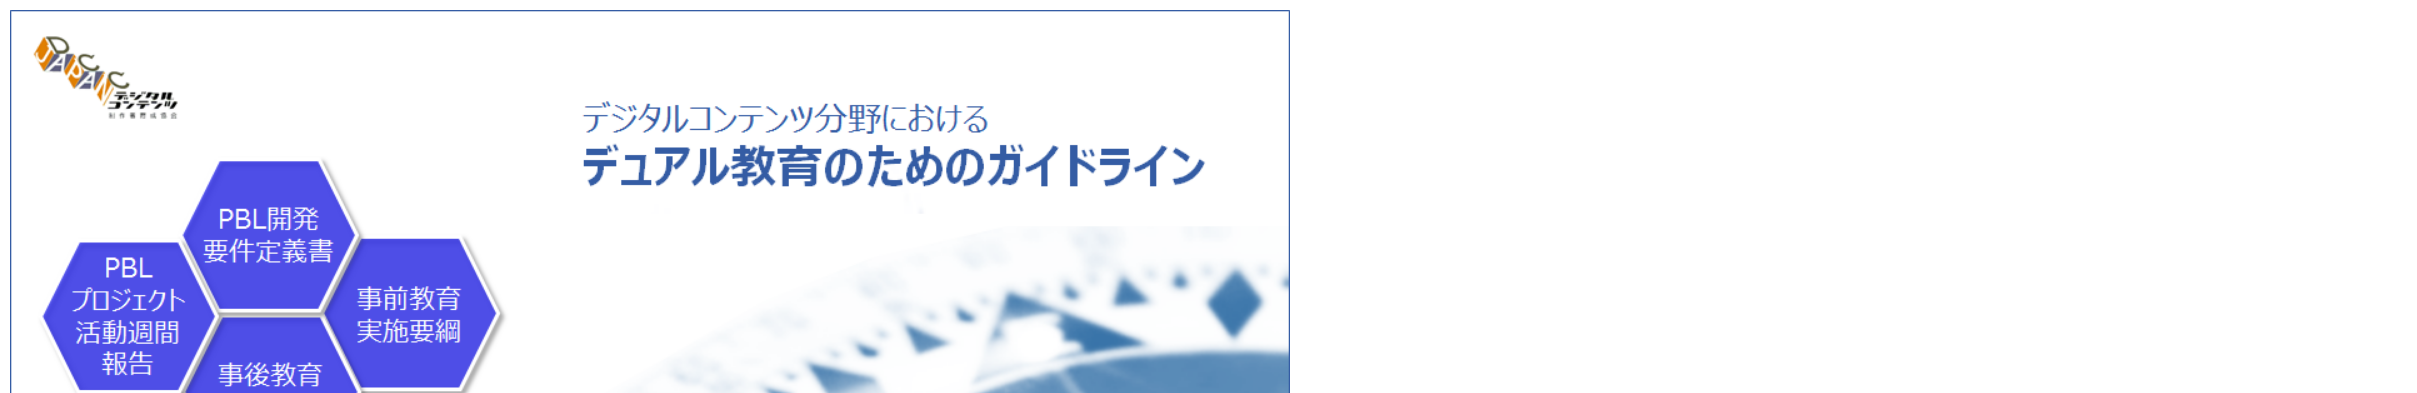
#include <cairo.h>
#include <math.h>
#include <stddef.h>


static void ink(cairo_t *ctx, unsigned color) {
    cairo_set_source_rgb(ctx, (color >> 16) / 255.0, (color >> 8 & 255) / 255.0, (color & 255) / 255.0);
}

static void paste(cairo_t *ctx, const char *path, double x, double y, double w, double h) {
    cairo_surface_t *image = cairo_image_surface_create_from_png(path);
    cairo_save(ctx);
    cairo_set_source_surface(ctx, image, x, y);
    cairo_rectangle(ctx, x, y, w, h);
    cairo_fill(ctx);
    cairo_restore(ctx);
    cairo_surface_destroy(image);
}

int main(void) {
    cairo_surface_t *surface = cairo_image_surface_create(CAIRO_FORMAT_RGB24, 2417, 393);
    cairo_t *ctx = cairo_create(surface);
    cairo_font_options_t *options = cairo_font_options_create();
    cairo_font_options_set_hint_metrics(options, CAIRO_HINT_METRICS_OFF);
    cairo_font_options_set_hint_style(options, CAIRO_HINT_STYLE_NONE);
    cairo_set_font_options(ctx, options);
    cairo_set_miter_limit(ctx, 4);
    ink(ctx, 0xFFFFFF);
    cairo_paint(ctx);
    paste(ctx, "media/1.png", 10, 10, 1280, 383);
    cairo_surface_write_to_png(surface, "image.png");
    cairo_font_options_destroy(options);
    cairo_destroy(ctx);
    cairo_surface_destroy(surface);
    return 0;
}
